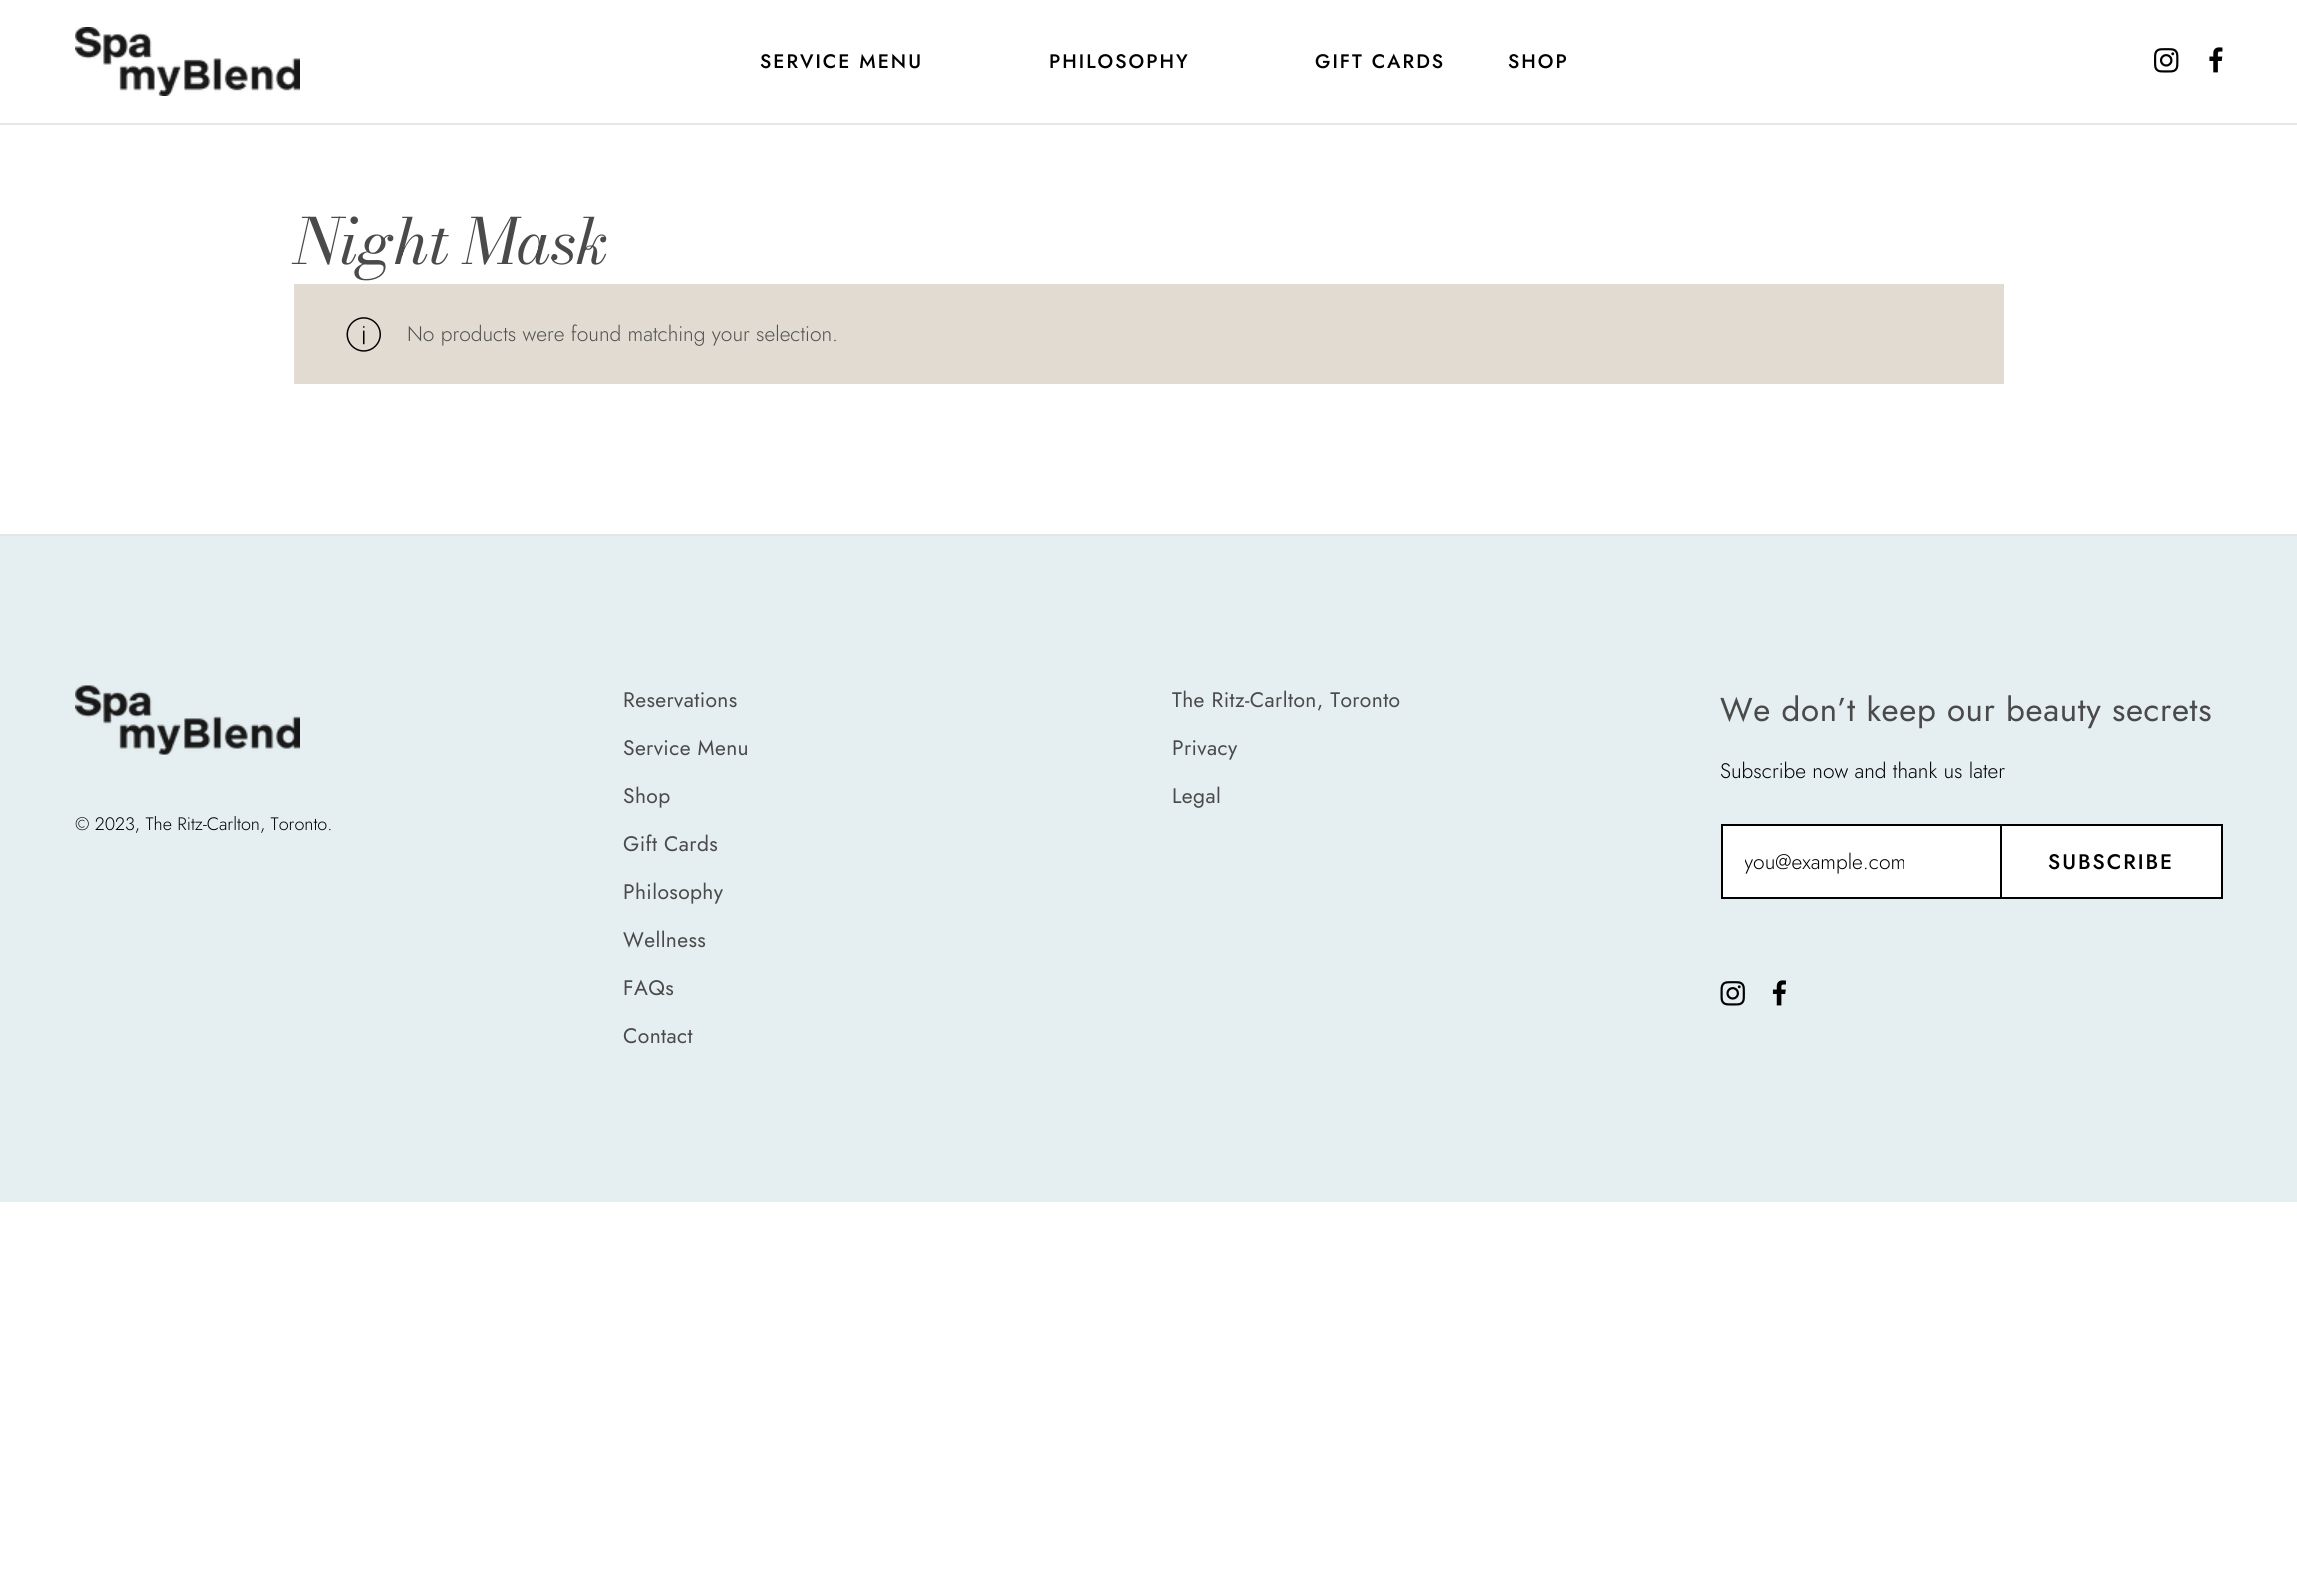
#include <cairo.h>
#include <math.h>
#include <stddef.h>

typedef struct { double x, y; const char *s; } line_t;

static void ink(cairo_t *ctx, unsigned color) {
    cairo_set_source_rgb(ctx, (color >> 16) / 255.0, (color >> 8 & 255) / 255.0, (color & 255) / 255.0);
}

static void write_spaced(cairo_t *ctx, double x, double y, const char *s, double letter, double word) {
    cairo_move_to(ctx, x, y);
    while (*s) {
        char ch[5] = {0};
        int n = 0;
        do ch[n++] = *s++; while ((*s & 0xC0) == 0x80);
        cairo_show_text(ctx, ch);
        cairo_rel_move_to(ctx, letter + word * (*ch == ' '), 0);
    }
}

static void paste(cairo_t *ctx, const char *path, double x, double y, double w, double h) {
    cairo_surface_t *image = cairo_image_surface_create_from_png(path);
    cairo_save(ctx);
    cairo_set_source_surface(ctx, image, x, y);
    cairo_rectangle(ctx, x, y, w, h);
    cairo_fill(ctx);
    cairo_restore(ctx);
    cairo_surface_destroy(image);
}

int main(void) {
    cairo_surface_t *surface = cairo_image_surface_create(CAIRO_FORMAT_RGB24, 2297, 1594);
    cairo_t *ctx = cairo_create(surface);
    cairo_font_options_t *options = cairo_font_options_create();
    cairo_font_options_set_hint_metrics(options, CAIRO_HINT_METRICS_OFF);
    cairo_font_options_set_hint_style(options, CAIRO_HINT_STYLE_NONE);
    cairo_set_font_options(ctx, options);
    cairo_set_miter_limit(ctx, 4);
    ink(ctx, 0xFFFFFF);
    cairo_paint(ctx);
    ink(ctx, 0xE6E6E6);
    cairo_rectangle(ctx, 0, 123, 2297, 2);
    cairo_fill(ctx);
    paste(ctx, "media/1.png", 75, 27, 225, 69);
    cairo_select_font_face(ctx, "Jost Medium", CAIRO_FONT_SLANT_NORMAL, CAIRO_FONT_WEIGHT_NORMAL);
    cairo_set_font_size(ctx, 19.5);
    ink(ctx, 0x000000);
    {
        static const line_t items[] = {
            {760, 68, "SERVICE MENU"},
            {1049, 68, "PHILOSOPHY"},
            {1315, 68, "GIFT CARDS"},
            {1508, 68, "SHOP"},
        };
        for (size_t i = 0; i < sizeof items / sizeof *items; i++) {
            write_spaced(ctx, items[i].x, items[i].y, items[i].s, 2, 0);
        }
    }
    paste(ctx, "media/2.png", 2154, 48, 25, 25);
    paste(ctx, "media/3.png", 2209, 47, 14, 26);
    cairo_select_font_face(ctx, "Bodoni Moda", CAIRO_FONT_SLANT_ITALIC, CAIRO_FONT_WEIGHT_NORMAL);
    cairo_set_font_size(ctx, 63);
    ink(ctx, 0x4A4A4A);
    write_spaced(ctx, 294, 264, "Night Mask", -0.6, 0);
    ink(ctx, 0xE1DBD1);
    cairo_rectangle(ctx, 294, 284, 1710, 100);
    cairo_fill(ctx);
    paste(ctx, "media/4.png", 346, 317, 35, 35);
    cairo_select_font_face(ctx, "Jost Light", CAIRO_FONT_SLANT_NORMAL, CAIRO_FONT_WEIGHT_NORMAL);
    cairo_set_font_size(ctx, 21);
    ink(ctx, 0x515151);
    cairo_move_to(ctx, 407, 341);
    cairo_show_text(ctx, "No products were found matching your selection.");
    ink(ctx, 0xE6E6E6);
    cairo_rectangle(ctx, 0, 534, 2297, 2);
    cairo_fill(ctx);
    ink(ctx, 0xE5EEF0);
    cairo_rectangle(ctx, 0, 536, 2297, 666);
    cairo_fill(ctx);
    paste(ctx, "media/5.png", 75, 685, 225, 70);
    cairo_set_font_size(ctx, 18);
    ink(ctx, 0x000000);
    cairo_move_to(ctx, 75, 830);
    cairo_show_text(ctx, "© 2023, The Ritz-Carlton, Toronto.");
    cairo_select_font_face(ctx, "Jost", CAIRO_FONT_SLANT_NORMAL, CAIRO_FONT_WEIGHT_NORMAL);
    cairo_set_font_size(ctx, 21);
    ink(ctx, 0x4A4A4A);
    {
        static const line_t items[] = {
            {623, 707, "Reservations"},
            {623, 755, "Service Menu"},
            {623, 803, "Shop"},
            {623, 851, "Gift Cards"},
            {623, 899, "Philosophy"},
            {623, 947, "Wellness"},
            {623, 995, "FAQs"},
            {623, 1043, "Contact"},
            {1172, 707, "The Ritz-Carlton, Toronto"},
            {1172, 755, "Privacy"},
            {1172, 803, "Legal"},
        };
        for (size_t i = 0; i < sizeof items / sizeof *items; i++) {
            write_spaced(ctx, items[i].x, items[i].y, items[i].s, 0.4, 0);
        }
    }
    cairo_set_font_size(ctx, 33);
    write_spaced(ctx, 1720, 721, "We don’t keep our beauty secrets", 0.65, 0);
    cairo_select_font_face(ctx, "Jost Light", CAIRO_FONT_SLANT_NORMAL, CAIRO_FONT_WEIGHT_NORMAL);
    cairo_set_font_size(ctx, 21);
    ink(ctx, 0x000000);
    cairo_move_to(ctx, 1720, 778);
    cairo_show_text(ctx, "Subscribe now and thank us later");
    ink(ctx, 0xFFFFFF);
    cairo_rectangle(ctx, 1722, 825, 500, 73);
    cairo_fill_preserve(ctx);
    ink(ctx, 0x000000);
    cairo_stroke(ctx);
    cairo_save(ctx);
    cairo_rectangle(ctx, 1745, 846, 237, 30);
    cairo_clip(ctx);
    cairo_move_to(ctx, 1744, 869);
    cairo_show_text(ctx, "you@example.com");
    cairo_restore(ctx);
    cairo_rectangle(ctx, 2001, 825, 221, 73);
    cairo_stroke(ctx);
    cairo_select_font_face(ctx, "Jost Medium", CAIRO_FONT_SLANT_NORMAL, CAIRO_FONT_WEIGHT_NORMAL);
    write_spaced(ctx, 2048, 869, "SUBSCRIBE", 2, 0);
    paste(ctx, "media/6.png", 1720, 981, 25, 25);
    paste(ctx, "media/7.png", 1772, 980, 14, 26);
    cairo_surface_write_to_png(surface, "image.png");
    cairo_font_options_destroy(options);
    cairo_destroy(ctx);
    cairo_surface_destroy(surface);
    return 0;
}
